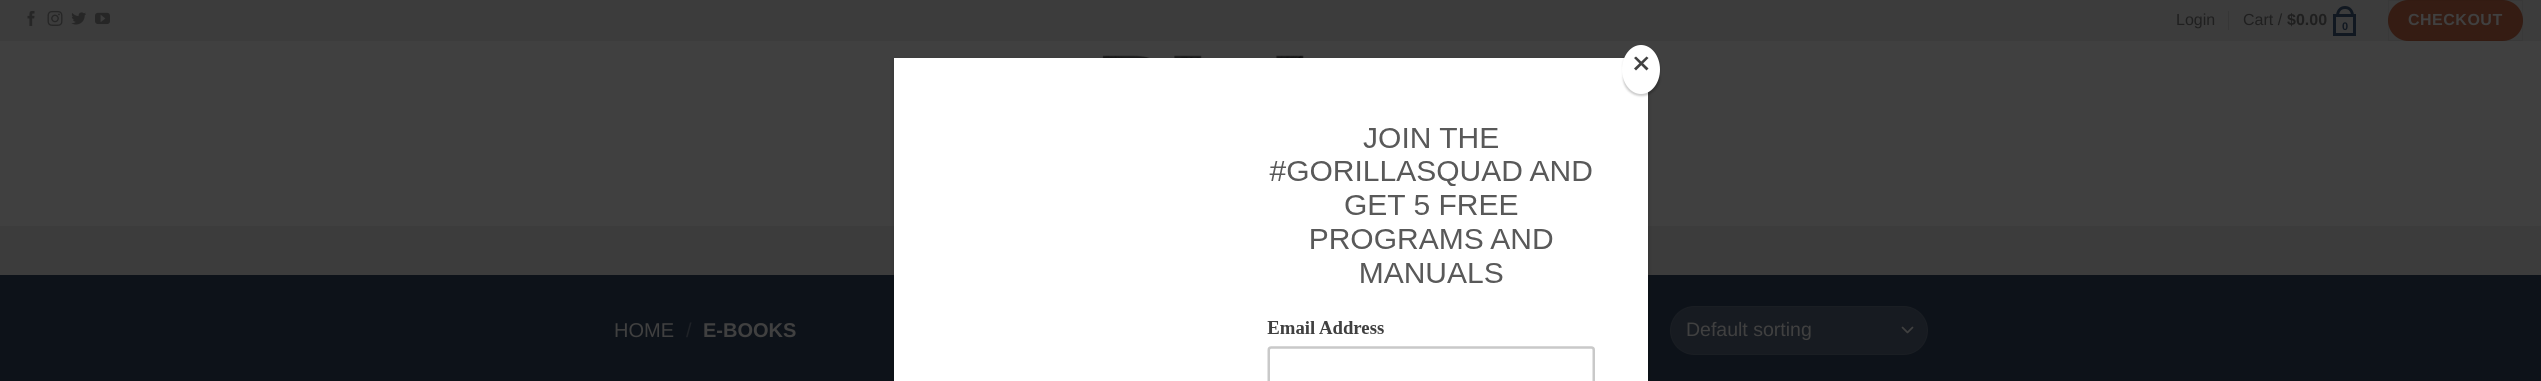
#include <cairo.h>
#include <math.h>
#include <stddef.h>


static void ink(cairo_t *ctx, unsigned color) {
    cairo_set_source_rgb(ctx, (color >> 16) / 255.0, (color >> 8 & 255) / 255.0, (color & 255) / 255.0);
}

static void write_spaced(cairo_t *ctx, double x, double y, const char *s, double letter, double word) {
    cairo_move_to(ctx, x, y);
    while (*s) {
        char ch[5] = {0};
        int n = 0;
        do ch[n++] = *s++; while ((*s & 0xC0) == 0x80);
        cairo_show_text(ctx, ch);
        cairo_rel_move_to(ctx, letter + word * (*ch == ' '), 0);
    }
}

static void round_path(cairo_t *ctx, double x, double y, double w, double h, double r) {
    cairo_new_sub_path(ctx);
    cairo_arc(ctx, x + w - r, y + h - r, r, 0, M_PI / 2);
    cairo_arc(ctx, x + r, y + h - r, r, M_PI / 2, M_PI);
    cairo_arc(ctx, x + r, y + r, r, M_PI, 1.5 * M_PI);
    cairo_arc(ctx, x + w - r, y + r, r, 1.5 * M_PI, 2 * M_PI);
    cairo_close_path(ctx);
}

static void blur_box(cairo_t *ctx, double x, double y, double w, double h, double r, double blur, double alpha) {
    cairo_push_group_with_content(ctx, CAIRO_CONTENT_ALPHA);
    cairo_set_operator(ctx, CAIRO_OPERATOR_SOURCE);
    for (int i = 15; i >= -15 && fmin(w, h) + blur * i / 3 > 0; i -= 2) {
        double e = blur * i / 6;
        cairo_set_source_rgba(ctx, 0, 0, 0, alpha * erfc((i - 1) / 8.5) / 2);
        round_path(ctx, x - e, y - e, w + 2 * e, h + 2 * e, fmax(0, fmin(r + e + blur * .6, fmin(w, h) / 2 + e)));
        cairo_fill(ctx);
    }
    cairo_pattern_t *soft = cairo_pop_group(ctx);
    cairo_mask(ctx, soft);
    cairo_pattern_destroy(soft);
}

static void paste(cairo_t *ctx, const char *path, double x, double y, double w, double h) {
    cairo_surface_t *image = cairo_image_surface_create_from_png(path);
    cairo_save(ctx);
    cairo_set_source_surface(ctx, image, x, y);
    cairo_rectangle(ctx, x, y, w, h);
    cairo_fill(ctx);
    cairo_restore(ctx);
    cairo_surface_destroy(image);
}

int main(void) {
    cairo_surface_t *surface = cairo_image_surface_create(CAIRO_FORMAT_RGB24, 2541, 381);
    cairo_t *ctx = cairo_create(surface);
    cairo_font_options_t *options = cairo_font_options_create();
    cairo_font_options_set_hint_metrics(options, CAIRO_HINT_METRICS_OFF);
    cairo_font_options_set_hint_style(options, CAIRO_HINT_STYLE_NONE);
    cairo_set_font_options(ctx, options);
    cairo_set_miter_limit(ctx, 4);
    ink(ctx, 0x404040);
    cairo_paint(ctx);
    ink(ctx, 0x3C3C3C);
    cairo_rectangle(ctx, 0, 0, 2541, 41);
    cairo_fill(ctx);
    paste(ctx, "media/1.png", 27, 10, 8, 16);
    paste(ctx, "media/2.png", 47, 10, 16, 16);
    paste(ctx, "media/3.png", 71, 12, 15, 13);
    paste(ctx, "media/4.png", 95, 12, 15, 13);
    cairo_select_font_face(ctx, "Liberation Sans", CAIRO_FONT_SLANT_NORMAL, CAIRO_FONT_WEIGHT_NORMAL);
    cairo_set_font_size(ctx, 16);
    ink(ctx, 0x1F1F1F);
    cairo_move_to(ctx, 2176, 25);
    cairo_show_text(ctx, "Login");
    ink(ctx, 0x363636);
    cairo_rectangle(ctx, 2228, 11, 1, 19);
    cairo_fill(ctx);
    ink(ctx, 0x1F1F1F);
    cairo_move_to(ctx, 2243, 25);
    cairo_show_text(ctx, "Cart /");
    cairo_select_font_face(ctx, "Liberation Sans", CAIRO_FONT_SLANT_NORMAL, CAIRO_FONT_WEIGHT_BOLD);
    cairo_move_to(ctx, 2287, 25);
    cairo_show_text(ctx, "$0.00");
    cairo_rectangle(ctx, 2334.5, 15.5, 20, 19);
    ink(ctx, 0x111821);
    cairo_set_line_width(ctx, 3);
    cairo_stroke(ctx);
    cairo_set_fill_rule(ctx, CAIRO_FILL_RULE_EVEN_ODD);
    cairo_new_path(ctx);
    cairo_move_to(ctx, 2345, 6);
    cairo_curve_to(ctx, 2351, 6, 2354, 11, 2354, 16);
    cairo_line_to(ctx, 2336, 16);
    cairo_curve_to(ctx, 2336, 11, 2339, 6, 2345, 6);
    cairo_close_path(ctx);
    cairo_move_to(ctx, 2345, 9);
    cairo_curve_to(ctx, 2349.5, 9, 2351, 12.5, 2351, 16);
    cairo_line_to(ctx, 2339, 16);
    cairo_curve_to(ctx, 2339, 12.5, 2340.5, 9, 2345, 9);
    cairo_close_path(ctx);
    cairo_fill(ctx);
    cairo_set_font_size(ctx, 11);
    cairo_move_to(ctx, 2342, 30);
    cairo_show_text(ctx, "0");
    ink(ctx, 0x351C13);
    round_path(ctx, 2388, 0, 135, 41, 20.5);
    cairo_fill(ctx);
    cairo_rectangle(ctx, 2388.5, 0.5, 134, 40);
    cairo_set_source_rgba(ctx, 0, 0, 0, 0.05);
    cairo_set_line_width(ctx, 1);
    cairo_stroke(ctx);
    cairo_set_font_size(ctx, 16);
    ink(ctx, 0x404040);
    write_spaced(ctx, 2408, 25, "CHECKOUT", 0.5, 0);
    paste(ctx, "media/5.png", 1102, 55, 202, 3);
    ink(ctx, 0x3C3C3C);
    cairo_rectangle(ctx, 0, 226, 2541, 49);
    cairo_fill(ctx);
    ink(ctx, 0x0D1219);
    cairo_rectangle(ctx, 0, 275, 2541, 106);
    cairo_fill(ctx);
    cairo_select_font_face(ctx, "Liberation Sans", CAIRO_FONT_SLANT_NORMAL, CAIRO_FONT_WEIGHT_NORMAL);
    cairo_set_font_size(ctx, 20);
    ink(ctx, 0x404040);
    cairo_move_to(ctx, 614, 337);
    cairo_show_text(ctx, "HOME");
    ink(ctx, 0x1F2227);
    cairo_move_to(ctx, 686, 337);
    cairo_show_text(ctx, "/");
    cairo_select_font_face(ctx, "Liberation Sans", CAIRO_FONT_SLANT_NORMAL, CAIRO_FONT_WEIGHT_BOLD);
    ink(ctx, 0x404040);
    cairo_move_to(ctx, 703, 337);
    cairo_show_text(ctx, "E-BOOKS");
    ink(ctx, 0x171B21);
    round_path(ctx, 1670, 306, 258, 49, 24.5);
    cairo_fill(ctx);
    cairo_new_path(ctx);
    cairo_move_to(ctx, 1902.5, 327.5);
    cairo_line_to(ctx, 1907.5, 332.5);
    cairo_line_to(ctx, 1912.5, 327.5);
    ink(ctx, 0x404040);
    cairo_set_line_width(ctx, 1.7);
    cairo_set_line_cap(ctx, CAIRO_LINE_CAP_ROUND);
    cairo_set_line_join(ctx, CAIRO_LINE_JOIN_ROUND);
    cairo_stroke(ctx);
    round_path(ctx, 1670.5, 306.5, 257, 48, 24);
    cairo_set_source_rgba(ctx, 0.251, 0.251, 0.251, 0.09);
    cairo_set_line_width(ctx, 1);
    cairo_set_line_cap(ctx, CAIRO_LINE_CAP_BUTT);
    cairo_set_line_join(ctx, CAIRO_LINE_JOIN_MITER);
    cairo_stroke(ctx);
    cairo_select_font_face(ctx, "Liberation Sans", CAIRO_FONT_SLANT_NORMAL, CAIRO_FONT_WEIGHT_NORMAL);
    cairo_set_font_size(ctx, 19.5);
    ink(ctx, 0x404040);
    cairo_move_to(ctx, 1686, 336);
    cairo_show_text(ctx, "Default sorting");
    ink(ctx, 0x000000);
    blur_box(ctx, 894, 60, 754, 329, 0, 2.5, 0.2);
    paste(ctx, "media/6.png", 894, 58, 754, 323);
    blur_box(ctx, 1623, 48, 37, 48, 18.5, 1, 0.2);
    ink(ctx, 0xFFFFFF);
    cairo_new_path(ctx);
    cairo_move_to(ctx, 1641, 45);
    cairo_curve_to(ctx, 1651.5, 45, 1660, 56, 1660, 69.5);
    cairo_curve_to(ctx, 1660, 83, 1651.5, 94, 1641, 94);
    cairo_curve_to(ctx, 1630.5, 94, 1622, 83, 1622, 69.5);
    cairo_curve_to(ctx, 1622, 56, 1630.5, 45, 1641, 45);
    cairo_close_path(ctx);
    cairo_fill(ctx);
    ink(ctx, 0x414141);
    cairo_set_fill_rule(ctx, CAIRO_FILL_RULE_WINDING);
    cairo_new_path(ctx);
    cairo_move_to(ctx, 1646.5, 56.5);
    cairo_line_to(ctx, 1648.5, 58);
    cairo_line_to(ctx, 1636, 70.5);
    cairo_line_to(ctx, 1634, 68.5);
    cairo_close_path(ctx);
    cairo_fill(ctx);
    cairo_new_path(ctx);
    cairo_move_to(ctx, 1634, 58);
    cairo_line_to(ctx, 1636, 56.5);
    cairo_line_to(ctx, 1648.5, 68.5);
    cairo_line_to(ctx, 1646.5, 70.5);
    cairo_close_path(ctx);
    cairo_fill(ctx);
    cairo_surface_write_to_png(surface, "image.png");
    cairo_font_options_destroy(options);
    cairo_destroy(ctx);
    cairo_surface_destroy(surface);
    return 0;
}
